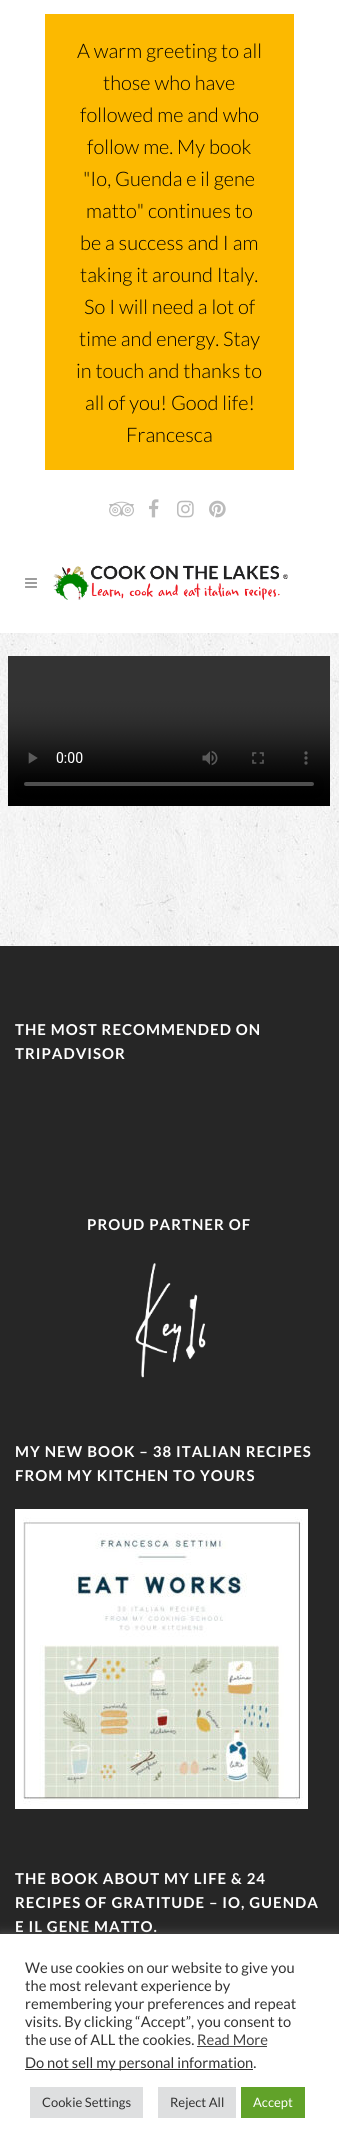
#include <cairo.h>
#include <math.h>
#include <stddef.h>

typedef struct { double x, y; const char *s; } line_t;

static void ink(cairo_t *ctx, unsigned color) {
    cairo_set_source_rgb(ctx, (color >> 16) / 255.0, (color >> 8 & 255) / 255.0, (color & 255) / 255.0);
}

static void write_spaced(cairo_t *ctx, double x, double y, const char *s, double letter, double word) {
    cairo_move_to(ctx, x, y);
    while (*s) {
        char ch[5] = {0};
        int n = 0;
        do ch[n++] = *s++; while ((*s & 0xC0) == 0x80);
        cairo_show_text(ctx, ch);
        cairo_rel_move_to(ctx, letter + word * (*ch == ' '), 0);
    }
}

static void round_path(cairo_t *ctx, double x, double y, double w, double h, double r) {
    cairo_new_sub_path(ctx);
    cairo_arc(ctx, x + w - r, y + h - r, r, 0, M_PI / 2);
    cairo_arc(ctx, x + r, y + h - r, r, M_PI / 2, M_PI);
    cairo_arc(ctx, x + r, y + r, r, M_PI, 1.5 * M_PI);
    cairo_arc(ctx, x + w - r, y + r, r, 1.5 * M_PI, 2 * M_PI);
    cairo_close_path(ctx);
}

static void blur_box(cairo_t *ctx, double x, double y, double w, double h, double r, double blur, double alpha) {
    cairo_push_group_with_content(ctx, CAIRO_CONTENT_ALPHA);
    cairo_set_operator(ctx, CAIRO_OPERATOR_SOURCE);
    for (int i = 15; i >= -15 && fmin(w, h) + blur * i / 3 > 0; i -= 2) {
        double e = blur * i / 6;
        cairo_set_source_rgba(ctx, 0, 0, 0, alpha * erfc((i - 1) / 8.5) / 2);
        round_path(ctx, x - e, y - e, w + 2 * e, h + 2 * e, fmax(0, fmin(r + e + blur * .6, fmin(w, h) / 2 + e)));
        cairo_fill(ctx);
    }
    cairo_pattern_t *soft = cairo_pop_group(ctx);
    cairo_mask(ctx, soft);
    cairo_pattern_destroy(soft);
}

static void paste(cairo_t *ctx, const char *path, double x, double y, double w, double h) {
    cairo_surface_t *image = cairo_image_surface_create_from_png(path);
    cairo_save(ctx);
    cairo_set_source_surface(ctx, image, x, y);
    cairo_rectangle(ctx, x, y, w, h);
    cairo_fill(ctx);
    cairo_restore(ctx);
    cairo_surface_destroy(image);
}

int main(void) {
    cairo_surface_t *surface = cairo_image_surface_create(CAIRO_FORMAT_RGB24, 339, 2148);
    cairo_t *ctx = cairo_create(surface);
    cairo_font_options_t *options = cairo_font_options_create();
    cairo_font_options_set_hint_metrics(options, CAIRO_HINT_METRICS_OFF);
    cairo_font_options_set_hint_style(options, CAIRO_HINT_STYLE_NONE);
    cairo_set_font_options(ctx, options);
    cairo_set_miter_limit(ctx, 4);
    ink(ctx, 0xFFFFFF);
    cairo_paint(ctx);
    paste(ctx, "media/1.png", 0, 633, 339, 313);
    ink(ctx, 0xFCB900);
    cairo_rectangle(ctx, 45, 14, 249, 456);
    cairo_fill(ctx);
    cairo_select_font_face(ctx, "Lato Light", CAIRO_FONT_SLANT_NORMAL, CAIRO_FONT_WEIGHT_NORMAL);
    cairo_set_font_size(ctx, 20);
    ink(ctx, 0x000000);
    {
        static const line_t items[] = {
            {77, 58, "A warm greeting to all"},
            {103, 90, "those who have"},
            {80, 122, "followed me and who"},
            {87, 154, "follow me. My book"},
            {83, 186, "\"Io, Guenda e il gene"},
            {86, 218, "matto\" continues to"},
            {80, 250, "be a success and I am"},
            {80, 282, "taking it around Italy."},
            {84, 314, "So I will need a lot of"},
            {79, 346, "time and energy. Stay"},
            {76, 378, "in touch and thanks to"},
            {85, 410, "all of you! Good life!"},
            {126, 442, "Francesca"},
        };
        for (size_t i = 0; i < sizeof items / sizeof *items; i++) {
            cairo_move_to(ctx, items[i].x, items[i].y);
            cairo_show_text(ctx, items[i].s);
        }
    }
    paste(ctx, "media/2.png", 109, 501, 25, 16);
    paste(ctx, "media/3.png", 149, 499, 10, 19);
    paste(ctx, "media/4.png", 177, 500, 17, 18);
    paste(ctx, "media/5.png", 209, 500, 17, 18);
    paste(ctx, "media/6.png", 25, 578, 12, 10);
    paste(ctx, "media/7.png", 53, 565, 235, 35);
    paste(ctx, "media/8.png", 8, 656, 322, 150);
    ink(ctx, 0x262626);
    cairo_rectangle(ctx, 0, 946, 339, 988);
    cairo_fill(ctx);
    cairo_select_font_face(ctx, "Lato", CAIRO_FONT_SLANT_NORMAL, CAIRO_FONT_WEIGHT_BOLD);
    cairo_set_font_size(ctx, 15);
    ink(ctx, 0xFFFFFF);
    {
        static const line_t items[] = {
            {15, 1035, "THE MOST RECOMMENDED ON"},
            {15, 1059, "TRIPADVISOR"},
            {87, 1230, "PROUD PARTNER OF"},
        };
        for (size_t i = 0; i < sizeof items / sizeof *items; i++) {
            write_spaced(ctx, items[i].x, items[i].y, items[i].s, 1, 0);
        }
    }
    paste(ctx, "media/9.png", 135, 1263, 71, 115);
    write_spaced(ctx, 15, 1457, "MY NEW BOOK – 38 ITALIAN RECIPES", 1, 0);
    write_spaced(ctx, 15, 1481, "FROM MY KITCHEN TO YOURS", 1, 0);
    paste(ctx, "media/10.png", 15, 1509, 293, 300);
    {
        static const line_t items[] = {
            {15, 1884, "THE BOOK ABOUT MY LIFE & 24"},
            {15, 1908, "RECIPES OF GRATITUDE – IO, GUENDA"},
            {15, 1932, "E IL GENE MATTO."},
        };
        for (size_t i = 0; i < sizeof items / sizeof *items; i++) {
            write_spaced(ctx, items[i].x, items[i].y, items[i].s, 1, 0);
        }
    }
    ink(ctx, 0xACABAB);
    blur_box(ctx, 0, 1933, 339, 214, 0, 5, 0.3);
    ink(ctx, 0xFFFFFF);
    cairo_rectangle(ctx, 0, 1934, 339, 214);
    cairo_fill(ctx);
    cairo_select_font_face(ctx, "Lato", CAIRO_FONT_SLANT_NORMAL, CAIRO_FONT_WEIGHT_NORMAL);
    cairo_set_font_size(ctx, 14.7);
    ink(ctx, 0x333333);
    {
        static const line_t items[] = {
            {25, 1973, "We use cookies on our website to give you"},
            {25, 1991, "the most relevant experience by"},
            {25, 2009, "remembering your preferences and repeat"},
            {25, 2027, "visits. By clicking “Accept”, you consent to"},
            {25, 2045, "the use of ALL the cookies."},
        };
        for (size_t i = 0; i < sizeof items / sizeof *items; i++) {
            cairo_move_to(ctx, items[i].x, items[i].y);
            cairo_show_text(ctx, items[i].s);
        }
    }
    ink(ctx, 0x444444);
    cairo_move_to(ctx, 197, 2045);
    cairo_show_text(ctx, "Read More");
    cairo_rectangle(ctx, 197, 2046, 70, 1);
    cairo_fill(ctx);
    ink(ctx, 0x333333);
    cairo_rectangle(ctx, 25, 2069, 228, 1);
    cairo_fill(ctx);
    cairo_move_to(ctx, 25, 2068);
    cairo_show_text(ctx, "Do not sell my personal information.");
    ink(ctx, 0xDEDFE0);
    cairo_rectangle(ctx, 30, 2087, 113, 31);
    cairo_fill(ctx);
    cairo_set_font_size(ctx, 13);
    ink(ctx, 0x333333);
    cairo_move_to(ctx, 42, 2107);
    cairo_show_text(ctx, "Cookie Settings");
    ink(ctx, 0xDEDFE0);
    cairo_rectangle(ctx, 158, 2087, 78, 31);
    cairo_fill(ctx);
    ink(ctx, 0x333333);
    cairo_move_to(ctx, 170, 2107);
    cairo_show_text(ctx, "Reject All");
    ink(ctx, 0x61A229);
    cairo_rectangle(ctx, 241, 2087, 64, 31);
    cairo_fill(ctx);
    ink(ctx, 0xFFFFFF);
    cairo_move_to(ctx, 253, 2107);
    cairo_show_text(ctx, "Accept");
    cairo_surface_write_to_png(surface, "image.png");
    cairo_font_options_destroy(options);
    cairo_destroy(ctx);
    cairo_surface_destroy(surface);
    return 0;
}
